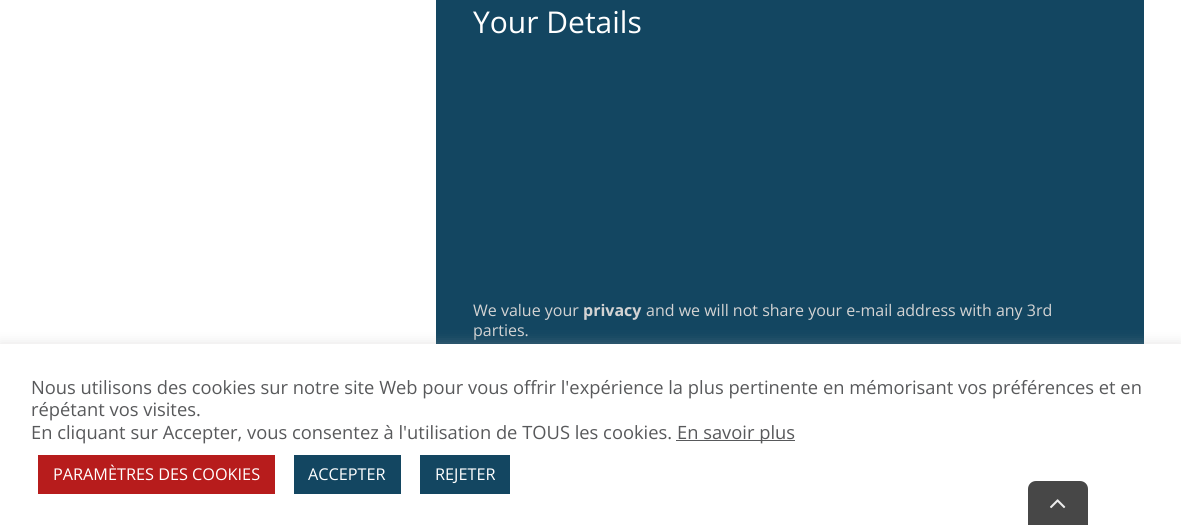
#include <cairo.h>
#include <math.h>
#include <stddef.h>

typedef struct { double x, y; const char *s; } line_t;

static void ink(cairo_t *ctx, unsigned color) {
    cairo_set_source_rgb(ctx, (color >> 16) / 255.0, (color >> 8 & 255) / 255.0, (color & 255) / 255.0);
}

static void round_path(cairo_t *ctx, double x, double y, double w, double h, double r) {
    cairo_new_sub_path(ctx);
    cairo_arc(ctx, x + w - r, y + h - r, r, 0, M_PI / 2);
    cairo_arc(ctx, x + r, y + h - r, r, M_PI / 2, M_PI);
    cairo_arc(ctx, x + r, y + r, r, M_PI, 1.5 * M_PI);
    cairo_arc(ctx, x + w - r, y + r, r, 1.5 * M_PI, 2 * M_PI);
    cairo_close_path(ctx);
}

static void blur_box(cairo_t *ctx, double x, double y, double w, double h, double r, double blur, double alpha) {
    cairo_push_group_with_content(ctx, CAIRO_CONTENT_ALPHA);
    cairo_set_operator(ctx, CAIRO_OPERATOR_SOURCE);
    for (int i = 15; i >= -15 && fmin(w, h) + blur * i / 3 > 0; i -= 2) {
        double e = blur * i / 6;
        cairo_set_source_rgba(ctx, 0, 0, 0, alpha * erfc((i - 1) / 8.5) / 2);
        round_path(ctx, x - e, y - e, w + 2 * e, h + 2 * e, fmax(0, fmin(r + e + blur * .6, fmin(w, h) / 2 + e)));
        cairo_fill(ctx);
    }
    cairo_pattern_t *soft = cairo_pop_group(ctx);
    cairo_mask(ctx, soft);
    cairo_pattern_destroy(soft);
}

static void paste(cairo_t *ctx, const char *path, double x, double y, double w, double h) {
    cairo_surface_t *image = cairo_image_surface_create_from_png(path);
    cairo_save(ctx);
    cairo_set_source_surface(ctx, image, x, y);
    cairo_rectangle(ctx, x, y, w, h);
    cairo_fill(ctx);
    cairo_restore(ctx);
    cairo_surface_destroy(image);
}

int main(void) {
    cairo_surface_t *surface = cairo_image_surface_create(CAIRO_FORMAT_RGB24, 1181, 525);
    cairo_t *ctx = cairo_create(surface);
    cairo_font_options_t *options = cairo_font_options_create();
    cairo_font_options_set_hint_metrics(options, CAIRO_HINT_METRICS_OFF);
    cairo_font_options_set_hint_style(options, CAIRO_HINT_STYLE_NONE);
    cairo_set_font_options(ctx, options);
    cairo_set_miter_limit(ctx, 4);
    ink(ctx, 0xFFFFFF);
    cairo_paint(ctx);
    ink(ctx, 0x134661);
    cairo_rectangle(ctx, 436, 0, 708, 344);
    cairo_fill(ctx);
    cairo_select_font_face(ctx, "Open Sans", CAIRO_FONT_SLANT_NORMAL, CAIRO_FONT_WEIGHT_NORMAL);
    cairo_set_font_size(ctx, 30);
    ink(ctx, 0xFFFFFF);
    cairo_move_to(ctx, 473, 33);
    cairo_show_text(ctx, "Your Details");
    cairo_set_font_size(ctx, 16);
    ink(ctx, 0xD3D3D3);
    cairo_move_to(ctx, 473, 316);
    cairo_show_text(ctx, "We value your");
    cairo_select_font_face(ctx, "Open Sans", CAIRO_FONT_SLANT_NORMAL, CAIRO_FONT_WEIGHT_BOLD);
    cairo_move_to(ctx, 583, 316);
    cairo_show_text(ctx, "privacy");
    cairo_select_font_face(ctx, "Open Sans", CAIRO_FONT_SLANT_NORMAL, CAIRO_FONT_WEIGHT_NORMAL);
    cairo_move_to(ctx, 646, 316);
    cairo_show_text(ctx, "and we will not share your e-mail address with any 3rd");
    cairo_move_to(ctx, 473, 336);
    cairo_show_text(ctx, "parties.");
    ink(ctx, 0xACABAB);
    blur_box(ctx, 0, 343, 1181, 181, 0, 6, 0.3);
    ink(ctx, 0xFFFFFF);
    cairo_rectangle(ctx, 0, 344, 1181, 181);
    cairo_fill(ctx);
    cairo_set_font_size(ctx, 18.33);
    ink(ctx, 0x58595B);
    {
        static const line_t items[] = {
            {31, 394, "Nous utilisons des cookies sur notre site Web pour vous offrir l'expérience la plus pertinente en mémorisant vos préférences et en"},
            {31, 416, "répétant vos visites."},
            {31, 439, "En cliquant sur Accepter, vous consentez à l'utilisation de TOUS les cookies."},
        };
        for (size_t i = 0; i < sizeof items / sizeof *items; i++) {
            cairo_move_to(ctx, items[i].x, items[i].y);
            cairo_show_text(ctx, items[i].s);
        }
    }
    cairo_rectangle(ctx, 676, 440, 119, 1);
    cairo_fill(ctx);
    cairo_move_to(ctx, 677, 439);
    cairo_show_text(ctx, "En savoir plus");
    ink(ctx, 0xB71C1C);
    cairo_rectangle(ctx, 38, 455, 237, 39);
    cairo_fill(ctx);
    cairo_set_font_size(ctx, 16.25);
    ink(ctx, 0xFFFFFF);
    cairo_move_to(ctx, 53, 480);
    cairo_show_text(ctx, "PARAMÈTRES DES COOKIES");
    ink(ctx, 0x134661);
    cairo_rectangle(ctx, 294, 455, 107, 39);
    cairo_fill(ctx);
    ink(ctx, 0xFFFFFF);
    cairo_move_to(ctx, 308, 480);
    cairo_show_text(ctx, "ACCEPTER");
    ink(ctx, 0x134661);
    cairo_rectangle(ctx, 420, 455, 90, 39);
    cairo_fill(ctx);
    ink(ctx, 0xFFFFFF);
    cairo_move_to(ctx, 435, 480);
    cairo_show_text(ctx, "REJETER");
    ink(ctx, 0x474747);
    cairo_new_path(ctx);
    cairo_move_to(ctx, 1036, 481);
    cairo_line_to(ctx, 1080, 481);
    cairo_curve_to(ctx, 1084.5, 481, 1088, 484.5, 1088, 489);
    cairo_line_to(ctx, 1088, 525);
    cairo_line_to(ctx, 1028, 525);
    cairo_line_to(ctx, 1028, 489);
    cairo_curve_to(ctx, 1028, 484.5, 1031.5, 481, 1036, 481);
    cairo_close_path(ctx);
    cairo_fill(ctx);
    paste(ctx, "media/1.png", 1050, 499, 16, 10);
    cairo_surface_write_to_png(surface, "image.png");
    cairo_font_options_destroy(options);
    cairo_destroy(ctx);
    cairo_surface_destroy(surface);
    return 0;
}
